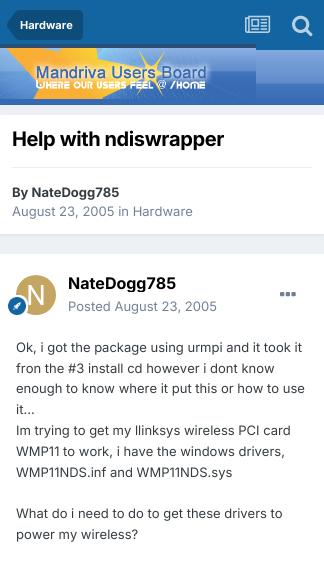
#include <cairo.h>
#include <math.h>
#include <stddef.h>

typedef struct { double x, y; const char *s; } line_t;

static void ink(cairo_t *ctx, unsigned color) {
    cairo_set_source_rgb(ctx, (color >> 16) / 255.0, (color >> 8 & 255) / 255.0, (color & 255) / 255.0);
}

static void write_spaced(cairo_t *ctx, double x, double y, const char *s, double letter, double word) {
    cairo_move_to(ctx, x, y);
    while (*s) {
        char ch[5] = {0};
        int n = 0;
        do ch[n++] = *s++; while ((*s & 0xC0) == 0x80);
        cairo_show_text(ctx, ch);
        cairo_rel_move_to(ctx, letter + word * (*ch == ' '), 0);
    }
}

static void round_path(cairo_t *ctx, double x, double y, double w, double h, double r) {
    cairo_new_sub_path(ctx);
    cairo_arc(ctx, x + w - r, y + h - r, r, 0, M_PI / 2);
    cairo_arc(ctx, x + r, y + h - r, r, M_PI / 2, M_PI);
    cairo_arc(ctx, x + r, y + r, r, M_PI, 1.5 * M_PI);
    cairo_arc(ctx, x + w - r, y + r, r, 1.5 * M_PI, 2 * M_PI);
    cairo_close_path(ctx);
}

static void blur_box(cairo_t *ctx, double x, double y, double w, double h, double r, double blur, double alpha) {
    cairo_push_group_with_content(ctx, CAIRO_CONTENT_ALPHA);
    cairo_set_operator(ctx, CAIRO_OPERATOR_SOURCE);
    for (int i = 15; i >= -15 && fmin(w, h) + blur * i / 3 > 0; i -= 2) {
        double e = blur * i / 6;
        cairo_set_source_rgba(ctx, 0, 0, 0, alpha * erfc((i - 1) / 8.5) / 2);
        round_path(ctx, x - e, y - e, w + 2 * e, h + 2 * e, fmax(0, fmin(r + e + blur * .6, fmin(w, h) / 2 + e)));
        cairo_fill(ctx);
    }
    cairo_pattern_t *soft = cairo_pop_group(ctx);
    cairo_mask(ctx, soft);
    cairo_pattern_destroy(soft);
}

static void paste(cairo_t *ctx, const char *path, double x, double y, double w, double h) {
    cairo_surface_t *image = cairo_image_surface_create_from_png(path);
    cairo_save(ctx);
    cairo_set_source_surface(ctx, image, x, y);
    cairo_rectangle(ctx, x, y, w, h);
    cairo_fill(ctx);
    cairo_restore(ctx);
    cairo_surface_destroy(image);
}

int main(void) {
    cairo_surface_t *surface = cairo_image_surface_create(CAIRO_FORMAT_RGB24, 324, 572);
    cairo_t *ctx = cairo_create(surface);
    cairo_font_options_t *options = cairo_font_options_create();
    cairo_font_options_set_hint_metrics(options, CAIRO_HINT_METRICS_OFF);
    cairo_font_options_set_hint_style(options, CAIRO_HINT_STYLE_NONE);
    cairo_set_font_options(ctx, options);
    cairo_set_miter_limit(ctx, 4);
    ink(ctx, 0xEDF0F4);
    cairo_paint(ctx);
    ink(ctx, 0x1265A1);
    cairo_rectangle(ctx, 0, 0, 324, 50);
    cairo_fill(ctx);
    ink(ctx, 0x0E4C79);
    cairo_new_path(ctx);
    cairo_move_to(ctx, 20, 10);
    cairo_line_to(ctx, 78, 10);
    cairo_curve_to(ctx, 81, 10, 83, 12, 83, 15);
    cairo_line_to(ctx, 83, 35);
    cairo_curve_to(ctx, 83, 38, 81, 40, 78, 40);
    cairo_line_to(ctx, 20, 40);
    cairo_close_path(ctx);
    cairo_fill(ctx);
    cairo_new_path(ctx);
    cairo_move_to(ctx, 20, 25);
    cairo_line_to(ctx, 20, 40);
    cairo_curve_to(ctx, 15.5, 40, 13.5, 35.5, 11, 32);
    cairo_curve_to(ctx, 9.5, 30, 7, 28, 7, 25);
    cairo_close_path(ctx);
    cairo_move_to(ctx, 20, 25);
    cairo_line_to(ctx, 7, 25);
    cairo_curve_to(ctx, 7, 22, 9.5, 20, 11, 18);
    cairo_curve_to(ctx, 13.5, 14.5, 15.5, 10, 20, 10);
    cairo_close_path(ctx);
    cairo_fill(ctx);
    cairo_select_font_face(ctx, "Inter", CAIRO_FONT_SLANT_NORMAL, CAIRO_FONT_WEIGHT_BOLD);
    cairo_set_font_size(ctx, 11);
    ink(ctx, 0xFFFFFF);
    cairo_move_to(ctx, 20, 29);
    cairo_show_text(ctx, "Hardware");
    paste(ctx, "media/1.png", 245, 15, 26, 18);
    paste(ctx, "media/2.png", 292, 15, 21, 22);
    ink(ctx, 0x366AB3);
    cairo_rectangle(ctx, 0, 99, 324, 6);
    cairo_fill(ctx);
    paste(ctx, "media/3.png", 256, 50, 68, 49);
    paste(ctx, "media/4.png", 0, 44, 256, 55);
    ink(ctx, 0x2D3748);
    blur_box(ctx, 1, 118, 322, 117, 0, 2, 0.1);
    ink(ctx, 0xFFFFFF);
    cairo_rectangle(ctx, 0, 115, 324, 119);
    cairo_fill(ctx);
    cairo_set_font_size(ctx, 20);
    ink(ctx, 0x000000);
    write_spaced(ctx, 12, 146, "Help with ndiswrapper", -0.4, 0);
    ink(ctx, 0xEFEFF0);
    cairo_rectangle(ctx, 12, 167, 300, 1);
    cairo_fill(ctx);
    cairo_set_font_size(ctx, 13);
    ink(ctx, 0x353C41);
    cairo_move_to(ctx, 12, 197);
    cairo_show_text(ctx, "By NateDogg785");
    cairo_select_font_face(ctx, "Inter", CAIRO_FONT_SLANT_NORMAL, CAIRO_FONT_WEIGHT_NORMAL);
    ink(ctx, 0x718096);
    cairo_move_to(ctx, 12, 216);
    cairo_show_text(ctx, "August 23, 2005 in Hardware");
    ink(ctx, 0xFFFFFF);
    cairo_rectangle(ctx, 0, 254, 324, 318);
    cairo_fill(ctx);
    paste(ctx, "media/5.png", 16, 275, 40, 40);
    paste(ctx, "media/6.png", 8, 295, 20, 20);
    cairo_save(ctx);
    cairo_rectangle(ctx, 68, 274, 108, 18);
    cairo_clip(ctx);
    cairo_select_font_face(ctx, "Inter", CAIRO_FONT_SLANT_NORMAL, CAIRO_FONT_WEIGHT_BOLD);
    cairo_set_font_size(ctx, 16);
    ink(ctx, 0x000000);
    cairo_move_to(ctx, 68, 289);
    cairo_show_text(ctx, "NateDogg785");
    cairo_restore(ctx);
    ink(ctx, 0x718096);
    cairo_move_to(ctx, 68, 311);
    cairo_show_text(ctx, "Posted August 23, 2005");
    paste(ctx, "media/7.png", 280, 292, 16, 5);
    ink(ctx, 0x353C41);
    {
        static const line_t items[] = {
            {16, 352, "Ok, i got the package using urmpi and it took it"},
            {16, 373, "fron the #3 install cd however i dont know"},
            {16, 393, "enough to know where it put this or how to use"},
            {16, 414, "it..."},
            {16, 435, "Im trying to get my llinksys wireless PCI card"},
            {16, 456, "WMP11 to work, i have the windows drivers,"},
            {16, 477, "WMP11NDS.inf and WMP11NDS.sys"},
            {16, 518, "What do i need to do to get these drivers to"},
            {16, 539, "power my wireless?"},
        };
        for (size_t i = 0; i < sizeof items / sizeof *items; i++) {
            cairo_move_to(ctx, items[i].x, items[i].y);
            cairo_show_text(ctx, items[i].s);
        }
    }
    cairo_surface_write_to_png(surface, "image.png");
    cairo_font_options_destroy(options);
    cairo_destroy(ctx);
    cairo_surface_destroy(surface);
    return 0;
}
